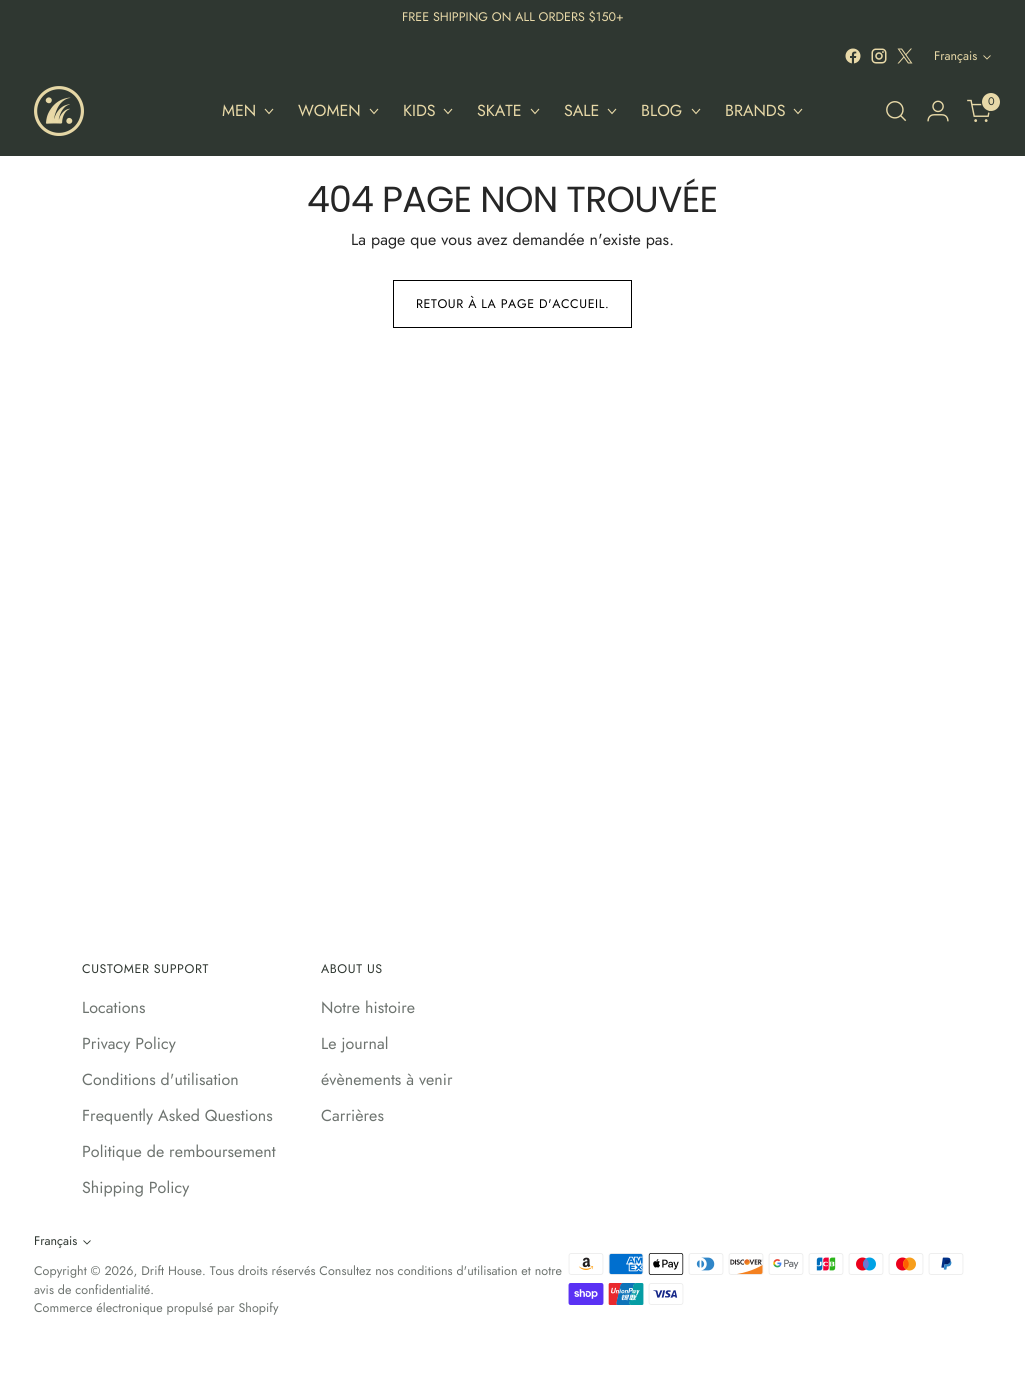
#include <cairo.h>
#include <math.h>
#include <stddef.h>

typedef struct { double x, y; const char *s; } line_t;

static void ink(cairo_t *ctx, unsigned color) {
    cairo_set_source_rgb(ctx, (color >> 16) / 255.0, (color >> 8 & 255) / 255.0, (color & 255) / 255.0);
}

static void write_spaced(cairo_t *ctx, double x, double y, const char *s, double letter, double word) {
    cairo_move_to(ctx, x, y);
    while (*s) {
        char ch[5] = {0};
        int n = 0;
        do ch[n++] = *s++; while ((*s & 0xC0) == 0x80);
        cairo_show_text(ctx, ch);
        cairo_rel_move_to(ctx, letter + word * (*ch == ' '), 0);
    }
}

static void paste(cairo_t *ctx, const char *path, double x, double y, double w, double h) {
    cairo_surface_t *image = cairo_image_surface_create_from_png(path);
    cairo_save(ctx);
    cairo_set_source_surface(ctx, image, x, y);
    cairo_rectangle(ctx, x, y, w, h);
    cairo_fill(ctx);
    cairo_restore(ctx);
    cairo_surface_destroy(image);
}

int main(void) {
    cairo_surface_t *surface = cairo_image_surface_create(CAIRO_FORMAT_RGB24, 1025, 1382);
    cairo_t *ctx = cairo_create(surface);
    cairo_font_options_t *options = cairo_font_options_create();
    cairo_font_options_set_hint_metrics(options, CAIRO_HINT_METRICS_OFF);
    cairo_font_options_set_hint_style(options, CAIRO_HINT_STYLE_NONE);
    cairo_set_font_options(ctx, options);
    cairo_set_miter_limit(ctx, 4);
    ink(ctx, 0xFFFFFF);
    cairo_paint(ctx);
    ink(ctx, 0x2F3731);
    cairo_rectangle(ctx, 0, 0, 1025, 156);
    cairo_fill(ctx);
    cairo_select_font_face(ctx, "Jost", CAIRO_FONT_SLANT_NORMAL, CAIRO_FONT_WEIGHT_NORMAL);
    cairo_set_font_size(ctx, 12.45);
    ink(ctx, 0xE8D9A8);
    write_spaced(ctx, 402, 21, "FREE SHIPPING ON ALL ORDERS $150+", 0.05, 0);
    paste(ctx, "media/1.png", 845, 48, 16, 16);
    paste(ctx, "media/2.png", 871, 48, 16, 16);
    paste(ctx, "media/3.png", 897, 48, 16, 16);
    cairo_move_to(ctx, 934, 60);
    cairo_show_text(ctx, "Français");
    cairo_new_path(ctx);
    cairo_move_to(ctx, 983.5, 55.5);
    cairo_line_to(ctx, 987, 59);
    cairo_line_to(ctx, 990.5, 55.5);
    cairo_set_line_width(ctx, 0.9);
    cairo_stroke(ctx);
    paste(ctx, "media/4.png", 34, 86, 50, 50);
    paste(ctx, "media/5.png", 886, 101, 21, 21);
    paste(ctx, "media/6.png", 927, 100, 22, 22);
    paste(ctx, "media/7.png", 967, 99, 24, 23);
    cairo_arc(ctx, 991.5, 102.5, 9.5, 0, 2 * M_PI);
    ink(ctx, 0x2F3731);
    cairo_set_line_width(ctx, 2);
    cairo_stroke(ctx);
    ink(ctx, 0xE8D9A8);
    cairo_arc(ctx, 991, 102, 9, 0, 2 * M_PI);
    cairo_fill(ctx);
    cairo_set_font_size(ctx, 11);
    ink(ctx, 0x2F3731);
    write_spaced(ctx, 988, 105, "0", 0.08, 0);
    cairo_set_font_size(ctx, 16);
    ink(ctx, 0xE8D9A8);
    cairo_move_to(ctx, 222, 116);
    cairo_show_text(ctx, "MEN");
    cairo_new_path(ctx);
    cairo_move_to(ctx, 265, 109);
    cairo_line_to(ctx, 269, 113.5);
    cairo_line_to(ctx, 273, 109);
    cairo_set_line_width(ctx, 1.1);
    cairo_stroke(ctx);
    cairo_move_to(ctx, 298, 116);
    cairo_show_text(ctx, "WOMEN");
    cairo_new_path(ctx);
    cairo_move_to(ctx, 370, 109);
    cairo_line_to(ctx, 374, 113.5);
    cairo_line_to(ctx, 378, 109);
    cairo_stroke(ctx);
    cairo_move_to(ctx, 403, 116);
    cairo_show_text(ctx, "KIDS");
    cairo_new_path(ctx);
    cairo_move_to(ctx, 444, 109);
    cairo_line_to(ctx, 448, 113.5);
    cairo_line_to(ctx, 452, 109);
    cairo_stroke(ctx);
    cairo_move_to(ctx, 477, 116);
    cairo_show_text(ctx, "SKATE");
    cairo_new_path(ctx);
    cairo_move_to(ctx, 531, 109);
    cairo_line_to(ctx, 535, 113.5);
    cairo_line_to(ctx, 539, 109);
    cairo_stroke(ctx);
    cairo_move_to(ctx, 564, 116);
    cairo_show_text(ctx, "SALE");
    cairo_new_path(ctx);
    cairo_move_to(ctx, 608, 109);
    cairo_line_to(ctx, 612, 113.5);
    cairo_line_to(ctx, 616, 109);
    cairo_stroke(ctx);
    cairo_move_to(ctx, 641, 116);
    cairo_show_text(ctx, "BLOG");
    cairo_new_path(ctx);
    cairo_move_to(ctx, 692, 109);
    cairo_line_to(ctx, 696, 113.5);
    cairo_line_to(ctx, 700, 109);
    cairo_stroke(ctx);
    cairo_move_to(ctx, 725, 116);
    cairo_show_text(ctx, "BRANDS");
    cairo_new_path(ctx);
    cairo_move_to(ctx, 794, 109);
    cairo_line_to(ctx, 798, 113.5);
    cairo_line_to(ctx, 802, 109);
    cairo_stroke(ctx);
    cairo_select_font_face(ctx, "Poppins", CAIRO_FONT_SLANT_NORMAL, CAIRO_FONT_WEIGHT_NORMAL);
    cairo_set_font_size(ctx, 36.25);
    ink(ctx, 0x262626);
    write_spaced(ctx, 307, 212, "404 PAGE NON TROUVÉE", -0.75, 0);
    cairo_select_font_face(ctx, "Jost", CAIRO_FONT_SLANT_NORMAL, CAIRO_FONT_WEIGHT_NORMAL);
    cairo_set_font_size(ctx, 16);
    write_spaced(ctx, 351, 245, "La page que vous avez demandée n'existe pas.", 0.08, 0);
    cairo_rectangle(ctx, 393.5, 280.5, 238, 47);
    ink(ctx, 0x000000);
    cairo_set_line_width(ctx, 1);
    cairo_stroke(ctx);
    cairo_set_font_size(ctx, 12.45);
    write_spaced(ctx, 416, 308, "RETOUR À LA PAGE D'ACCUEIL.", 0.6, 0);
    ink(ctx, 0x2F3731);
    write_spaced(ctx, 82, 973, "CUSTOMER SUPPORT", 0.6, 0);
    cairo_set_font_size(ctx, 16);
    ink(ctx, 0x6D736F);
    {
        static const line_t items[] = {
            {82, 1013, "Locations"},
            {82, 1049, "Privacy Policy"},
            {82, 1085, "Conditions d'utilisation"},
            {82, 1121, "Frequently Asked Questions"},
            {82, 1157, "Politique de remboursement"},
            {82, 1193, "Shipping Policy"},
        };
        for (size_t i = 0; i < sizeof items / sizeof *items; i++) {
            write_spaced(ctx, items[i].x, items[i].y, items[i].s, 0.08, 0);
        }
    }
    cairo_set_font_size(ctx, 12.45);
    ink(ctx, 0x2F3731);
    write_spaced(ctx, 321, 973, "ABOUT US", 0.6, 0);
    cairo_set_font_size(ctx, 16);
    ink(ctx, 0x6D736F);
    {
        static const line_t items[] = {
            {321, 1013, "Notre histoire"},
            {321, 1049, "Le journal"},
            {321, 1085, "évènements à venir"},
            {321, 1121, "Carrières"},
        };
        for (size_t i = 0; i < sizeof items / sizeof *items; i++) {
            write_spaced(ctx, items[i].x, items[i].y, items[i].s, 0.08, 0);
        }
    }
    cairo_set_font_size(ctx, 12.45);
    ink(ctx, 0x2F3731);
    cairo_move_to(ctx, 34, 1245);
    cairo_show_text(ctx, "Français");
    cairo_new_path(ctx);
    cairo_move_to(ctx, 83.5, 1240.5);
    cairo_line_to(ctx, 87, 1244);
    cairo_line_to(ctx, 90.5, 1240.5);
    cairo_set_line_width(ctx, 0.9);
    cairo_stroke(ctx);
    ink(ctx, 0x6D736F);
    {
        static const line_t items[] = {
            {34, 1275, "Copyright © 2026, Drift House. Tous droits réservés Consultez nos conditions d'utilisation et notre"},
            {34, 1294, "avis de confidentialité."},
            {34, 1312, "Commerce électronique propulsé par Shopify"},
        };
        for (size_t i = 0; i < sizeof items / sizeof *items; i++) {
            write_spaced(ctx, items[i].x, items[i].y, items[i].s, 0.08, 0);
        }
    }
    paste(ctx, "media/8.png", 568, 1253, 36, 22);
    paste(ctx, "media/9.png", 608, 1253, 36, 22);
    paste(ctx, "media/10.png", 648, 1253, 36, 22);
    paste(ctx, "media/11.png", 688, 1253, 36, 22);
    paste(ctx, "media/12.png", 728, 1253, 36, 22);
    paste(ctx, "media/13.png", 768, 1253, 36, 22);
    paste(ctx, "media/14.png", 808, 1253, 36, 22);
    paste(ctx, "media/15.png", 848, 1253, 36, 22);
    paste(ctx, "media/16.png", 888, 1253, 36, 22);
    paste(ctx, "media/17.png", 928, 1253, 36, 22);
    paste(ctx, "media/18.png", 568, 1283, 36, 22);
    paste(ctx, "media/19.png", 608, 1283, 36, 22);
    paste(ctx, "media/20.png", 648, 1283, 36, 22);
    cairo_surface_write_to_png(surface, "image.png");
    cairo_font_options_destroy(options);
    cairo_destroy(ctx);
    cairo_surface_destroy(surface);
    return 0;
}
